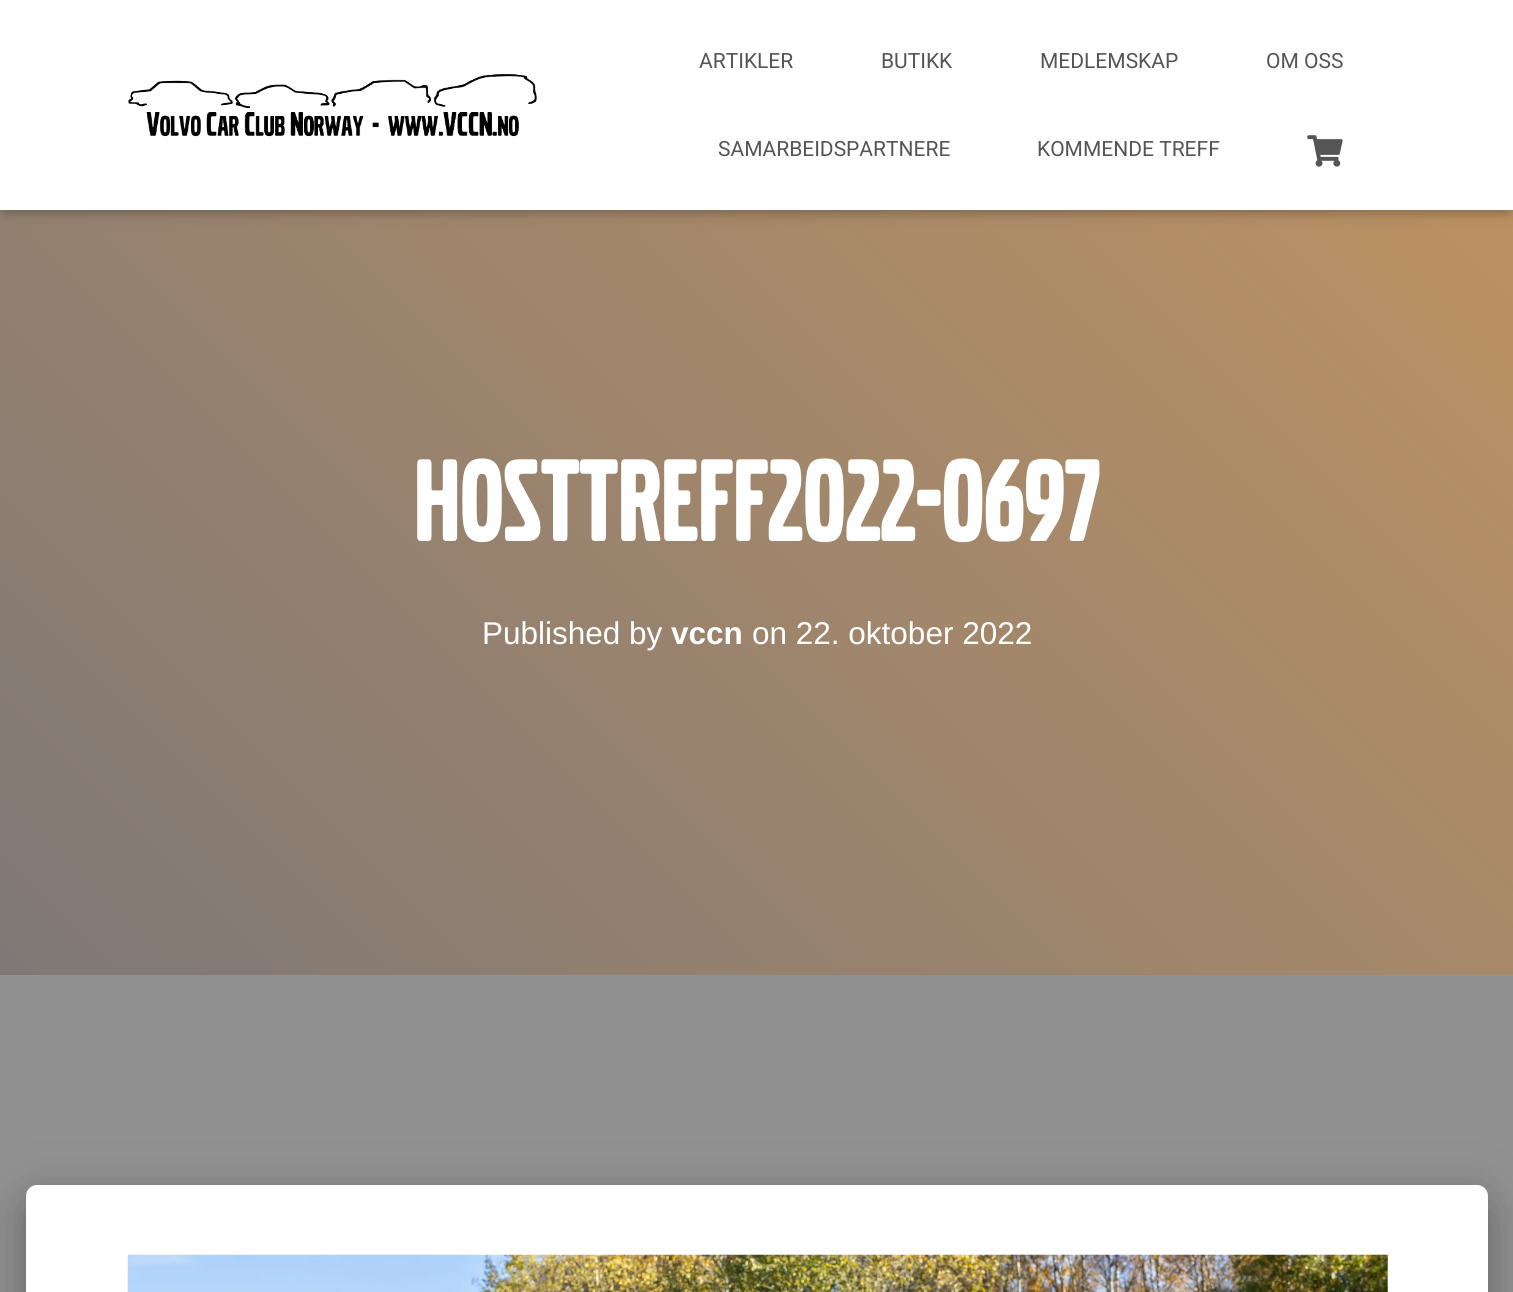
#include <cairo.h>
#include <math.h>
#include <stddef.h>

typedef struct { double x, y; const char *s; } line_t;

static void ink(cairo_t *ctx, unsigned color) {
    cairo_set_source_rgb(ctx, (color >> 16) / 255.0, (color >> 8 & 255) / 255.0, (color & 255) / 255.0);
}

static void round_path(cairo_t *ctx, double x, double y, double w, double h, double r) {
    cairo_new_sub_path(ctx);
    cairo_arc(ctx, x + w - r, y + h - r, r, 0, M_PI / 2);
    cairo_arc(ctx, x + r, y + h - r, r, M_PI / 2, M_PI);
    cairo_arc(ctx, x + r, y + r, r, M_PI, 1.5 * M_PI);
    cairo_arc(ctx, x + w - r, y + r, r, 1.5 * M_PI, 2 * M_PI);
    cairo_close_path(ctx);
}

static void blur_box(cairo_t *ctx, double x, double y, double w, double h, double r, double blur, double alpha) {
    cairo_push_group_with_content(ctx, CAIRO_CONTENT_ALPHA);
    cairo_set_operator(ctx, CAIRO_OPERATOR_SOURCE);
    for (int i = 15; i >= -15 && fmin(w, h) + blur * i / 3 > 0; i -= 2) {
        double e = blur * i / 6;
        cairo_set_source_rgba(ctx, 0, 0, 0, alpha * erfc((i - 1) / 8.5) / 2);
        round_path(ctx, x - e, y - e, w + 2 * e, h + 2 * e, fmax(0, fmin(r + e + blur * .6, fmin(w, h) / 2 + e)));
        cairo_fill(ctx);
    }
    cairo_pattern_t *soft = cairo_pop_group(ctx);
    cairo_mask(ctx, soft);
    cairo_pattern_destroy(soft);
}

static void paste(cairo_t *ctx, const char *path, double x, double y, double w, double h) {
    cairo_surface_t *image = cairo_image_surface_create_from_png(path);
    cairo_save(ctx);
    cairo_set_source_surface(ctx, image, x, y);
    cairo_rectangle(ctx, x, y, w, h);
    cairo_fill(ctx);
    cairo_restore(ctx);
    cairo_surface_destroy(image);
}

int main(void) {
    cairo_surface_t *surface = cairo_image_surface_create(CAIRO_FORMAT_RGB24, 1513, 1292);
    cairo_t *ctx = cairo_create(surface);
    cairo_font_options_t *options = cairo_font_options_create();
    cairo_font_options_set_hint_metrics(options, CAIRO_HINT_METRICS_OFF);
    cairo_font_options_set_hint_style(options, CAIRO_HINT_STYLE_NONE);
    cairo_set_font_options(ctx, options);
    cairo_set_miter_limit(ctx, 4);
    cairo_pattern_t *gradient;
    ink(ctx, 0x919191);
    cairo_paint(ctx);
    gradient = cairo_pattern_create_linear(135, 1110, 1379, -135);
    cairo_pattern_add_color_stop_rgba(gradient, 0, 0.498, 0.471, 0.463, 1);
    cairo_pattern_add_color_stop_rgba(gradient, 1, 0.757, 0.58, 0.38, 1);
    cairo_set_source(ctx, gradient);
    cairo_pattern_destroy(gradient);
    cairo_rectangle(ctx, 0, 210, 1513, 765);
    cairo_fill(ctx);
    ink(ctx, 0x000000);
    blur_box(ctx, 4, 11, 1506, 203, 0, 4.5, 0.1);
    blur_box(ctx, 0, 2, 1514, 210, 0, 9, 0.12);
    blur_box(ctx, 11, 12, 1492, 189, 0, 9, 0.42);
    ink(ctx, 0xFFFFFF);
    cairo_rectangle(ctx, 0, 0, 1513, 210);
    cairo_fill(ctx);
    paste(ctx, "media/1.png", 128, 74, 409, 63);
    cairo_select_font_face(ctx, "Roboto", CAIRO_FONT_SLANT_NORMAL, CAIRO_FONT_WEIGHT_NORMAL);
    cairo_set_font_size(ctx, 21);
    ink(ctx, 0x555555);
    {
        static const line_t items[] = {
            {699, 68, "ARTIKLER"},
            {881, 68, "BUTIKK"},
            {1040, 68, "MEDLEMSKAP"},
            {1266, 68, "OM OSS"},
            {718, 156, "SAMARBEIDSPARTNERE"},
            {1037, 156, "KOMMENDE TREFF"},
        };
        for (size_t i = 0; i < sizeof items / sizeof *items; i++) {
            cairo_move_to(ctx, items[i].x, items[i].y);
            cairo_show_text(ctx, items[i].s);
        }
    }
    paste(ctx, "media/2.png", 1307, 135, 36, 32);
    cairo_select_font_face(ctx, "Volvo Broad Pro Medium", CAIRO_FONT_SLANT_NORMAL, CAIRO_FONT_WEIGHT_NORMAL);
    cairo_set_font_size(ctx, 122.5);
    ink(ctx, 0xFFFFFF);
    cairo_move_to(ctx, 414, 541);
    cairo_show_text(ctx, "Hosttreff2022-0697");
    cairo_select_font_face(ctx, "Liberation Sans", CAIRO_FONT_SLANT_NORMAL, CAIRO_FONT_WEIGHT_NORMAL);
    cairo_set_font_size(ctx, 31.5);
    cairo_move_to(ctx, 482, 644);
    cairo_show_text(ctx, "Published by");
    cairo_select_font_face(ctx, "Liberation Sans", CAIRO_FONT_SLANT_NORMAL, CAIRO_FONT_WEIGHT_BOLD);
    cairo_move_to(ctx, 671, 644);
    cairo_show_text(ctx, "vccn");
    cairo_select_font_face(ctx, "Liberation Sans", CAIRO_FONT_SLANT_NORMAL, CAIRO_FONT_WEIGHT_NORMAL);
    cairo_move_to(ctx, 752, 644);
    cairo_show_text(ctx, "on 22. oktober 2022");
    ink(ctx, 0x000000);
    blur_box(ctx, 35, 1208, 1444, 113, 2, 9, 0.2);
    blur_box(ctx, 18, 1187, 1478, 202, 19, 26, 0.12);
    blur_box(ctx, 23, 1209, 1468, 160, 14, 21, 0.14);
    ink(ctx, 0xFFFFFF);
    cairo_new_path(ctx);
    cairo_move_to(ctx, 37, 1185);
    cairo_line_to(ctx, 1477, 1185);
    cairo_curve_to(ctx, 1483, 1185, 1488, 1190, 1488, 1196);
    cairo_line_to(ctx, 1488, 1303);
    cairo_line_to(ctx, 26, 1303);
    cairo_line_to(ctx, 26, 1196);
    cairo_curve_to(ctx, 26, 1190, 31, 1185, 37, 1185);
    cairo_close_path(ctx);
    cairo_fill(ctx);
    paste(ctx, "media/3.png", 127, 1254, 1261, 38);
    cairo_surface_write_to_png(surface, "image.png");
    cairo_font_options_destroy(options);
    cairo_destroy(ctx);
    cairo_surface_destroy(surface);
    return 0;
}
